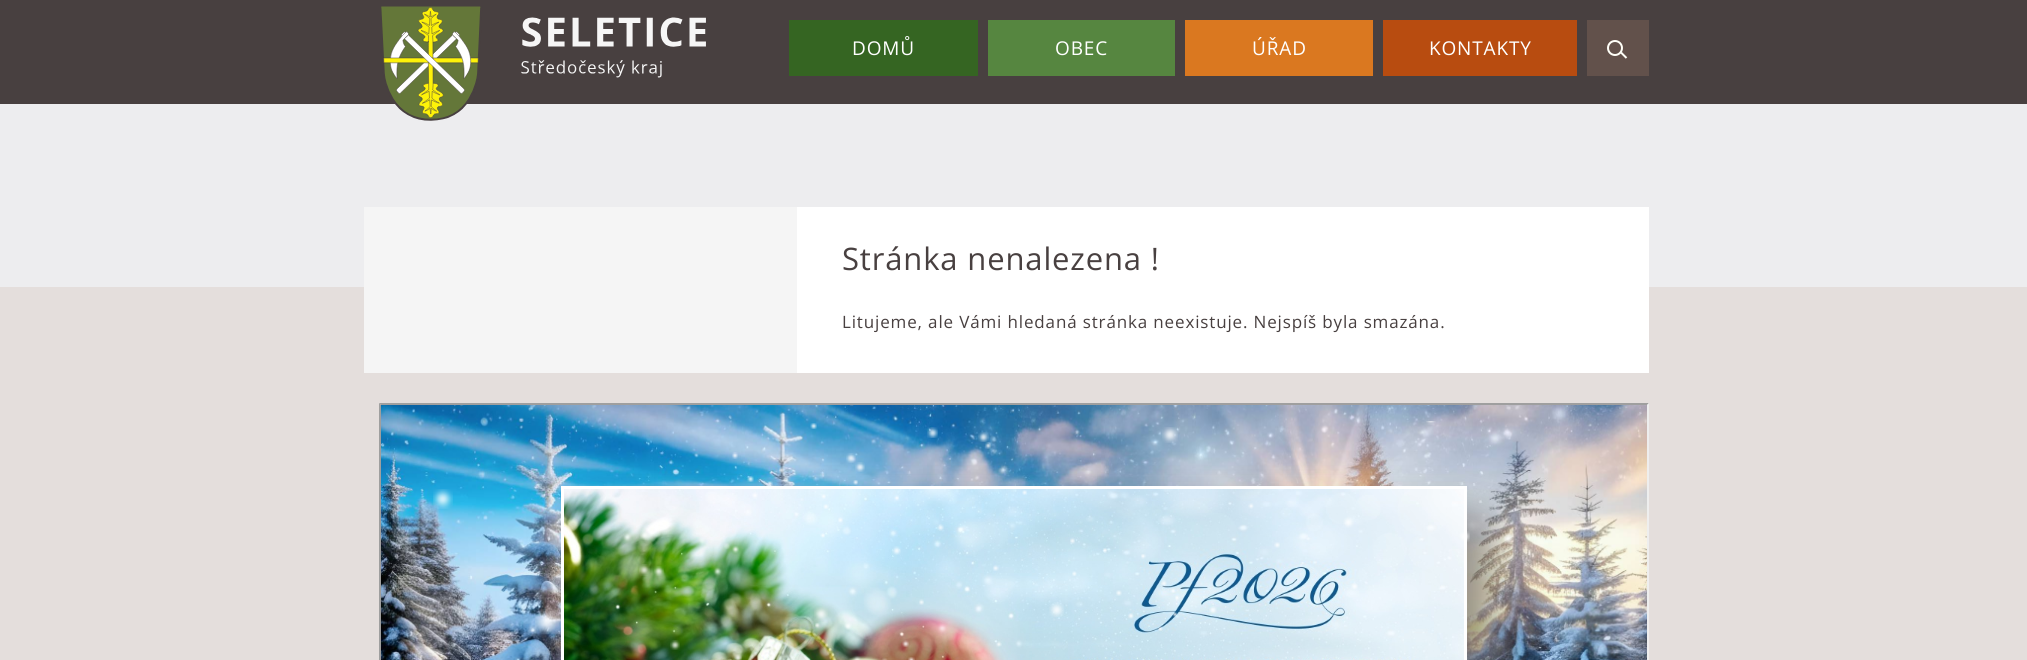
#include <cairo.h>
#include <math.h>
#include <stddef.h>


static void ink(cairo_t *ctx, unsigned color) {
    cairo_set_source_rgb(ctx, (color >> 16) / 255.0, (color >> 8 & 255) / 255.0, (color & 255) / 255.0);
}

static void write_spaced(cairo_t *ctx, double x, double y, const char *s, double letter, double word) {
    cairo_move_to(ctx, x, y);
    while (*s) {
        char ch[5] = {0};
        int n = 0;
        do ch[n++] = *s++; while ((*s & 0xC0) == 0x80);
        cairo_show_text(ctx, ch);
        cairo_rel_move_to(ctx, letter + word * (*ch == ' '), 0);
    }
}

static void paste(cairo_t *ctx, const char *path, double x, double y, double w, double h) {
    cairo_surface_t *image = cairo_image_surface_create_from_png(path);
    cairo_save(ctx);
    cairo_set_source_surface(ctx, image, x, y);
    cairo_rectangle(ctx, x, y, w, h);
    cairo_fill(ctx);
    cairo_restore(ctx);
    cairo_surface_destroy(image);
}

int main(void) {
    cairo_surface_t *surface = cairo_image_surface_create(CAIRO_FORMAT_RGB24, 2027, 660);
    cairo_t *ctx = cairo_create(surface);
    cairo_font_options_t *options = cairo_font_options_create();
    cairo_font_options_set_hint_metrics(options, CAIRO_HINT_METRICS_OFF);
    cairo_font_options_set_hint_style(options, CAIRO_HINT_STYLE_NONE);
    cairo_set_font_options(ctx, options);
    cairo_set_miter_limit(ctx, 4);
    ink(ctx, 0xE4DEDC);
    cairo_paint(ctx);
    ink(ctx, 0x484040);
    cairo_rectangle(ctx, 0, 0, 2027, 104);
    cairo_fill(ctx);
    ink(ctx, 0xEDEDEF);
    cairo_rectangle(ctx, 0, 104, 2027, 183);
    cairo_fill(ctx);
    paste(ctx, "media/1.png", 381, 6, 325, 115);
    ink(ctx, 0x356522);
    cairo_rectangle(ctx, 789, 20, 189, 56);
    cairo_fill(ctx);
    cairo_select_font_face(ctx, "Open Sans", CAIRO_FONT_SLANT_NORMAL, CAIRO_FONT_WEIGHT_NORMAL);
    cairo_set_font_size(ctx, 19);
    ink(ctx, 0xFFFFFF);
    write_spaced(ctx, 852, 55, "DOMŮ", 0.85, 0);
    ink(ctx, 0x568640);
    cairo_rectangle(ctx, 988, 20, 187, 56);
    cairo_fill(ctx);
    ink(ctx, 0xFFFFFF);
    write_spaced(ctx, 1055, 55, "OBEC", 0.85, 0);
    ink(ctx, 0xDA7820);
    cairo_rectangle(ctx, 1185, 20, 188, 56);
    cairo_fill(ctx);
    ink(ctx, 0xFFFFFF);
    write_spaced(ctx, 1252, 55, "ÚŘAD", 0.85, 0);
    ink(ctx, 0xB84C10);
    cairo_rectangle(ctx, 1383, 20, 194, 56);
    cairo_fill(ctx);
    ink(ctx, 0xFFFFFF);
    write_spaced(ctx, 1429, 55, "KONTAKTY", 0.85, 0);
    ink(ctx, 0x62514B);
    cairo_rectangle(ctx, 1587, 20, 62, 56);
    cairo_fill(ctx);
    cairo_arc(ctx, 1615, 48, 7, 0, 2 * M_PI);
    ink(ctx, 0xFFFFF8);
    cairo_stroke(ctx);
    cairo_new_path(ctx);
    cairo_move_to(ctx, 1621, 52.5);
    cairo_line_to(ctx, 1626.5, 58);
    cairo_stroke(ctx);
    ink(ctx, 0xFFFFFF);
    cairo_rectangle(ctx, 797, 207, 852, 166);
    cairo_fill(ctx);
    ink(ctx, 0xF5F5F5);
    cairo_rectangle(ctx, 364, 207, 433, 166);
    cairo_fill(ctx);
    cairo_set_font_size(ctx, 31);
    ink(ctx, 0x484040);
    write_spaced(ctx, 842, 270, "Stránka nenalezena !", 0.85, 0);
    cairo_set_font_size(ctx, 17);
    write_spaced(ctx, 842, 328, "Litujeme, ale Vámi hledaná stránka neexistuje. Nejspíš byla smazána.", 0.85, 0);
    ink(ctx, 0x9F9F9F);
    cairo_new_path(ctx);
    cairo_move_to(ctx, 379, 403);
    cairo_line_to(ctx, 1649, 403);
    cairo_line_to(ctx, 1647, 405);
    cairo_line_to(ctx, 381, 405);
    cairo_close_path(ctx);
    cairo_fill(ctx);
    ink(ctx, 0xEEEEEE);
    cairo_new_path(ctx);
    cairo_move_to(ctx, 1649, 403);
    cairo_line_to(ctx, 1649, 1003);
    cairo_line_to(ctx, 1647, 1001);
    cairo_line_to(ctx, 1647, 405);
    cairo_close_path(ctx);
    cairo_fill(ctx);
    ink(ctx, 0x9F9F9F);
    cairo_new_path(ctx);
    cairo_move_to(ctx, 379, 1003);
    cairo_line_to(ctx, 379, 403);
    cairo_line_to(ctx, 381, 405);
    cairo_line_to(ctx, 381, 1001);
    cairo_close_path(ctx);
    cairo_fill(ctx);
    paste(ctx, "media/2.png", 381, 405, 1266, 255);
    cairo_surface_write_to_png(surface, "image.png");
    cairo_font_options_destroy(options);
    cairo_destroy(ctx);
    cairo_surface_destroy(surface);
    return 0;
}
